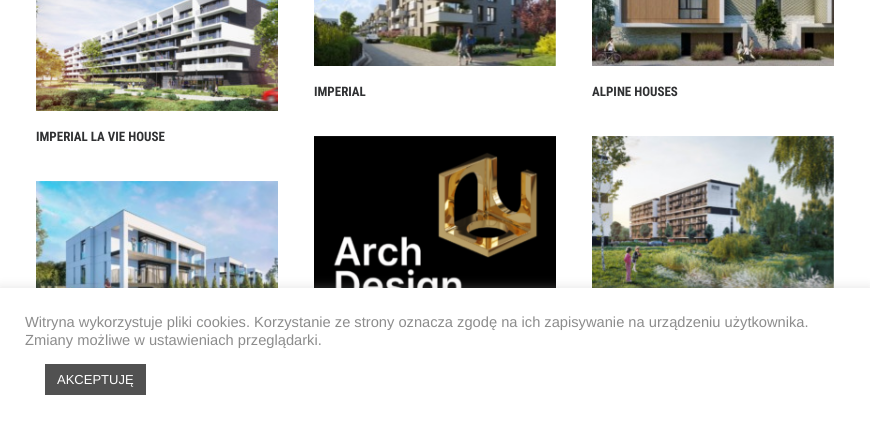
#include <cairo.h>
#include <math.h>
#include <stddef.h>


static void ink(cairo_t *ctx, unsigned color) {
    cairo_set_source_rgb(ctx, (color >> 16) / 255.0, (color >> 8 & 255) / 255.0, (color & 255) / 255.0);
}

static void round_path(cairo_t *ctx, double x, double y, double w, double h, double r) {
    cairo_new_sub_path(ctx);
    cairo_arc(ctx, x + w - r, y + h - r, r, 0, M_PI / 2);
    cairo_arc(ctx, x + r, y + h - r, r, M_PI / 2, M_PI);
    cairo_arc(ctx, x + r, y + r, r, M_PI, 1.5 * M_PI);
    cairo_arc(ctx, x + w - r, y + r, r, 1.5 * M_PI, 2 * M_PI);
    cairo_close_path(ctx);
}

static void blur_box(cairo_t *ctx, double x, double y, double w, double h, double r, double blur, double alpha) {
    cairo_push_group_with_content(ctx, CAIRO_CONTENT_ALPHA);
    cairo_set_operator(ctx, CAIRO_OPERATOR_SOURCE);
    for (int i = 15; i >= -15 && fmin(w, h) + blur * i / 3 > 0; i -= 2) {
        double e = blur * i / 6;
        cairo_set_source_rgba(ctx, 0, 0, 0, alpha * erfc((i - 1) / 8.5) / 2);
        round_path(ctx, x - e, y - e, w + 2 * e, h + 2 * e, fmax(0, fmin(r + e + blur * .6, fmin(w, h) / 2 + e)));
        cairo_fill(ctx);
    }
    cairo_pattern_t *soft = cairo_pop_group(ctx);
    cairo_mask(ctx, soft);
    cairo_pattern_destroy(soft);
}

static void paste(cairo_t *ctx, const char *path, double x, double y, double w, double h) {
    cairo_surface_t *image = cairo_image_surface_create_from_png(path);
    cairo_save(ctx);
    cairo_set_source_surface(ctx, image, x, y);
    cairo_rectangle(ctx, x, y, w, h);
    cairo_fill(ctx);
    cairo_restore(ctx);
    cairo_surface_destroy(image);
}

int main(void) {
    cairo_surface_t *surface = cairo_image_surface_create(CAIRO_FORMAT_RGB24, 870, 425);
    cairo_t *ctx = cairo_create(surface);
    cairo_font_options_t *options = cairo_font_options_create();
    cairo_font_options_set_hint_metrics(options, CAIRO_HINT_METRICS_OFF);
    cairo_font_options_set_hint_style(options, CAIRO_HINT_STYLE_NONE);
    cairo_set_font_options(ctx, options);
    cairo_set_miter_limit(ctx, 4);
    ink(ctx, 0xFFFFFF);
    cairo_paint(ctx);
    paste(ctx, "media/1.png", 314, 0, 242, 66);
    cairo_select_font_face(ctx, "Roboto Condensed", CAIRO_FONT_SLANT_NORMAL, CAIRO_FONT_WEIGHT_BOLD);
    cairo_set_font_size(ctx, 13);
    ink(ctx, 0x303133);
    cairo_move_to(ctx, 314, 96);
    cairo_show_text(ctx, "IMPERIAL");
    paste(ctx, "media/2.png", 592, 0, 242, 66);
    cairo_move_to(ctx, 592, 96);
    cairo_show_text(ctx, "ALPINE HOUSES");
    paste(ctx, "media/3.png", 36, 0, 242, 111);
    cairo_move_to(ctx, 36, 141);
    cairo_show_text(ctx, "IMPERIAL LA VIE HOUSE");
    paste(ctx, "media/4.png", 314, 136, 242, 152);
    paste(ctx, "media/5.png", 592, 136, 242, 152);
    paste(ctx, "media/6.png", 36, 181, 242, 107);
    ink(ctx, 0xACABAB);
    blur_box(ctx, 0, 287, 870, 137, 0, 5, 0.3);
    ink(ctx, 0xFFFFFF);
    cairo_rectangle(ctx, 0, 288, 870, 137);
    cairo_fill(ctx);
    cairo_select_font_face(ctx, "Liberation Sans", CAIRO_FONT_SLANT_NORMAL, CAIRO_FONT_WEIGHT_NORMAL);
    cairo_set_font_size(ctx, 14.67);
    ink(ctx, 0x8C8C8C);
    cairo_move_to(ctx, 25, 327);
    cairo_show_text(ctx, "Witryna wykorzystuje pliki cookies. Korzystanie ze strony oznacza zgodę na ich zapisywanie na urządzeniu użytkownika.");
    cairo_move_to(ctx, 25, 345);
    cairo_show_text(ctx, "Zmiany możliwe w ustawieniach przeglądarki.");
    ink(ctx, 0x515151);
    cairo_rectangle(ctx, 45, 364, 101, 31);
    cairo_fill(ctx);
    cairo_set_font_size(ctx, 13);
    ink(ctx, 0xFFFFFF);
    cairo_move_to(ctx, 57, 384);
    cairo_show_text(ctx, "AKCEPTUJĘ");
    cairo_surface_write_to_png(surface, "image.png");
    cairo_font_options_destroy(options);
    cairo_destroy(ctx);
    cairo_surface_destroy(surface);
    return 0;
}
